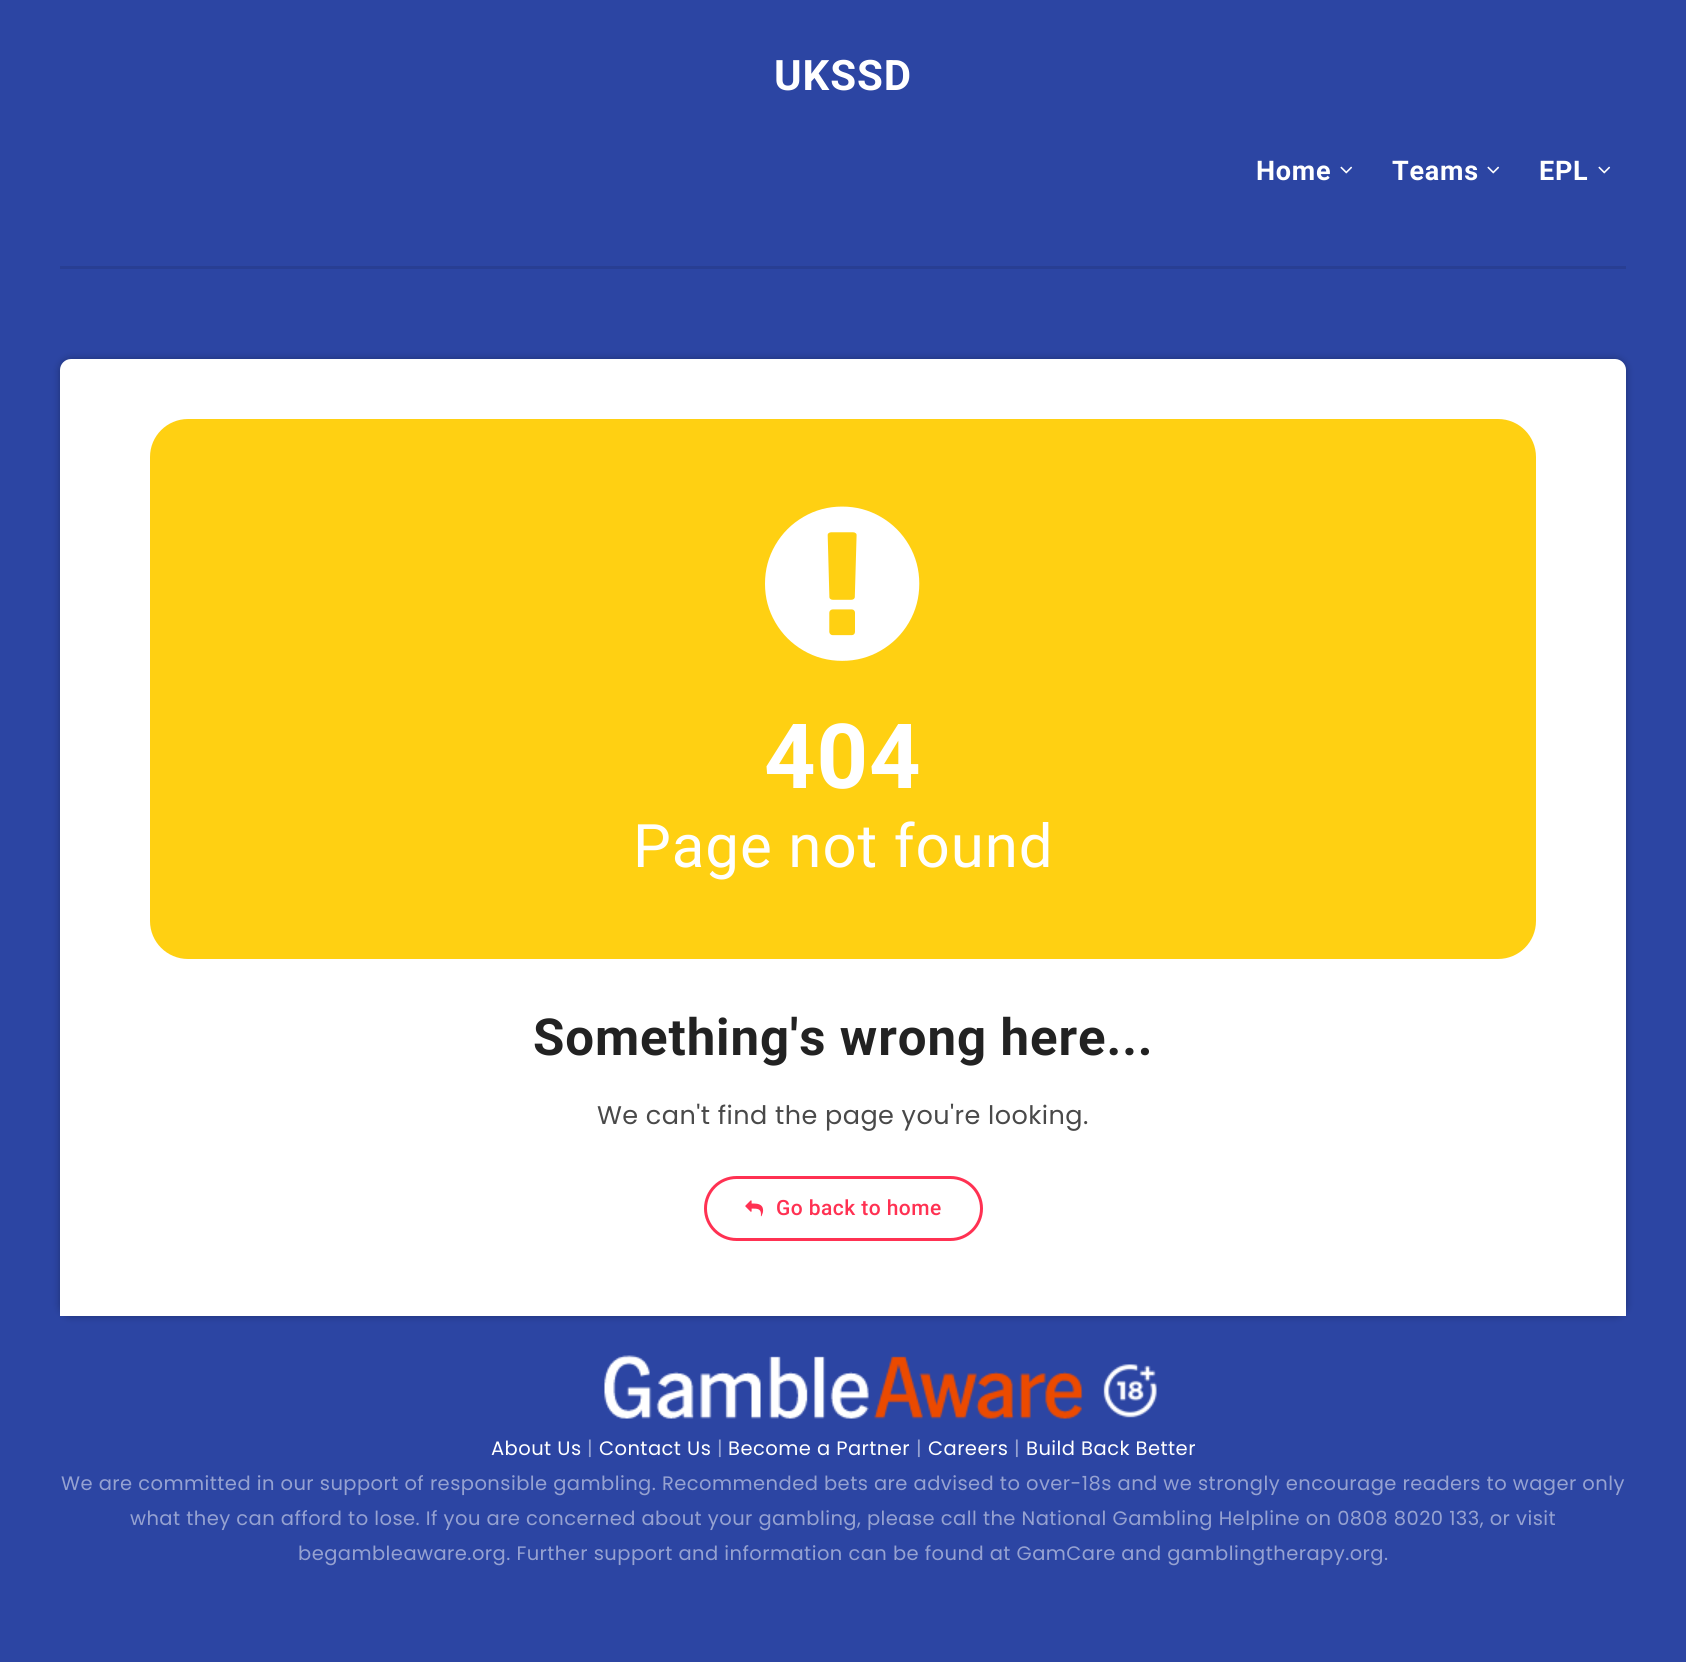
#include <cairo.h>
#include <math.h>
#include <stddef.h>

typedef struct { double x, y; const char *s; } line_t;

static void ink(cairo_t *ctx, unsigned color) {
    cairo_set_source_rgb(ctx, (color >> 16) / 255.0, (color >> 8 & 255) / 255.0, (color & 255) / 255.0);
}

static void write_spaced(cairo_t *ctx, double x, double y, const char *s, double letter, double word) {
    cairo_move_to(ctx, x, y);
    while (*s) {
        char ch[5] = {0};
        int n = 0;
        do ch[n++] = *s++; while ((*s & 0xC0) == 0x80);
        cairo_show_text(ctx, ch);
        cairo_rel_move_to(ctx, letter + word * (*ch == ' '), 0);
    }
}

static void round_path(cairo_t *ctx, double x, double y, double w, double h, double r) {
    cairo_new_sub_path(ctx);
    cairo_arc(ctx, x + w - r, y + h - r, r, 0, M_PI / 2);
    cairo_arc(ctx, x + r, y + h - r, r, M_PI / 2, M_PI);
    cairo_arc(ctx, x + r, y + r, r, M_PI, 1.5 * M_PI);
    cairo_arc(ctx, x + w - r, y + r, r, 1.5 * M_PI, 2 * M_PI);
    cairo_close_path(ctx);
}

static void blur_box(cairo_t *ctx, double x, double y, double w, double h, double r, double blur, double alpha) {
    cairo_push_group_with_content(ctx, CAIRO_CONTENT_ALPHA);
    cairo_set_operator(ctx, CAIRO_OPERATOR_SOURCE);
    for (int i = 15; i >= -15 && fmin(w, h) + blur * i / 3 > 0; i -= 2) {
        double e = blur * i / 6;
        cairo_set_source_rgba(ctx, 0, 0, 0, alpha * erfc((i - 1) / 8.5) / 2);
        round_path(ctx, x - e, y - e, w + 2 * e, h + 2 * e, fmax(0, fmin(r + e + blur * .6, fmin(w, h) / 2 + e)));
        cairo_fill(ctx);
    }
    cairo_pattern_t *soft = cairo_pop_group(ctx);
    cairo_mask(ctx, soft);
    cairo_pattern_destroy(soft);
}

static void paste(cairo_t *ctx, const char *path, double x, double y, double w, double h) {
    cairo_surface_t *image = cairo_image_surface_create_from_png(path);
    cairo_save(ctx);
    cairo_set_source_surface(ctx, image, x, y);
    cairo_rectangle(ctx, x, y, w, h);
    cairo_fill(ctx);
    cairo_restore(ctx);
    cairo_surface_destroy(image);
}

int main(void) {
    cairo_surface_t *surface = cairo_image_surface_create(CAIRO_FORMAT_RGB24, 1686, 1662);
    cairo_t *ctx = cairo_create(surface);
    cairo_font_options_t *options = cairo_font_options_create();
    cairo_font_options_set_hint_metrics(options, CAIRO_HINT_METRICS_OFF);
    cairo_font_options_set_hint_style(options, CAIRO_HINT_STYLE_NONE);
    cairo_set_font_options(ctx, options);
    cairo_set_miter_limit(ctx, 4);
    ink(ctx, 0x2C45A3);
    cairo_paint(ctx);
    cairo_select_font_face(ctx, "Roboto", CAIRO_FONT_SLANT_NORMAL, CAIRO_FONT_WEIGHT_BOLD);
    cairo_set_font_size(ctx, 42);
    ink(ctx, 0xFFFFFF);
    write_spaced(ctx, 774, 90, "UKSSD", 0.9, 0);
    cairo_set_font_size(ctx, 27);
    write_spaced(ctx, 1256, 180, "Home", 0.75, 0);
    paste(ctx, "media/1.png", 1340, 166, 13, 8);
    write_spaced(ctx, 1392, 180, "Teams", 0.75, 0);
    paste(ctx, "media/1.png", 1487, 166, 13, 8);
    write_spaced(ctx, 1539, 180, "EPL", 0.75, 0);
    paste(ctx, "media/1.png", 1598, 166, 13, 8);
    ink(ctx, 0x283E93);
    cairo_rectangle(ctx, 60, 266, 1566, 3);
    cairo_fill(ctx);
    ink(ctx, 0x000000);
    blur_box(ctx, 60, 359, 1566, 957, 11, 4, 0.3);
    ink(ctx, 0xFFFFFF);
    cairo_new_path(ctx);
    cairo_move_to(ctx, 71, 359);
    cairo_line_to(ctx, 1615, 359);
    cairo_curve_to(ctx, 1621, 359, 1626, 364, 1626, 370);
    cairo_line_to(ctx, 1626, 1316);
    cairo_line_to(ctx, 60, 1316);
    cairo_line_to(ctx, 60, 370);
    cairo_curve_to(ctx, 60, 364, 65, 359, 71, 359);
    cairo_close_path(ctx);
    cairo_fill(ctx);
    ink(ctx, 0xFFD012);
    round_path(ctx, 150, 419, 1386, 540, 38);
    cairo_fill(ctx);
    paste(ctx, "media/2.png", 765, 506, 155, 155);
    cairo_set_font_size(ctx, 90);
    ink(ctx, 0xFFFFFF);
    write_spaced(ctx, 764, 788, "404", 0.9, 0);
    cairo_select_font_face(ctx, "Roboto", CAIRO_FONT_SLANT_NORMAL, CAIRO_FONT_WEIGHT_NORMAL);
    cairo_set_font_size(ctx, 60);
    write_spaced(ctx, 633, 867, "Page not found", 0.9, 0);
    cairo_select_font_face(ctx, "Roboto", CAIRO_FONT_SLANT_NORMAL, CAIRO_FONT_WEIGHT_BOLD);
    cairo_set_font_size(ctx, 51);
    ink(ctx, 0x222222);
    write_spaced(ctx, 533, 1055, "Something's wrong here...", 0.9, 0);
    cairo_select_font_face(ctx, "Poppins", CAIRO_FONT_SLANT_NORMAL, CAIRO_FONT_WEIGHT_NORMAL);
    cairo_set_font_size(ctx, 25.5);
    ink(ctx, 0x494949);
    write_spaced(ctx, 597, 1124, "We can't find the page you're looking.", 0.45, 0);
    round_path(ctx, 705.5, 1177.5, 276, 62, 31);
    ink(ctx, 0xFF3152);
    cairo_set_line_width(ctx, 3);
    cairo_stroke(ctx);
    paste(ctx, "media/3.png", 745, 1200, 19, 17);
    cairo_select_font_face(ctx, "Roboto Medium", CAIRO_FONT_SLANT_NORMAL, CAIRO_FONT_WEIGHT_NORMAL);
    cairo_set_font_size(ctx, 21);
    write_spaced(ctx, 776, 1215, "Go back to home", 0.45, 0);
    paste(ctx, "media/4.png", 604, 1355, 553, 64);
    cairo_select_font_face(ctx, "Poppins", CAIRO_FONT_SLANT_NORMAL, CAIRO_FONT_WEIGHT_NORMAL);
    cairo_set_font_size(ctx, 19.5);
    ink(ctx, 0xFFFFFF);
    write_spaced(ctx, 491, 1455, "About Us", 0.45, 0);
    ink(ctx, 0x96A2D1);
    write_spaced(ctx, 587, 1455, "|", 0.45, 0);
    ink(ctx, 0xFFFFFF);
    write_spaced(ctx, 599, 1455, "Contact Us", 0.45, 0);
    ink(ctx, 0x96A2D1);
    write_spaced(ctx, 717, 1455, "|", 0.45, 0);
    ink(ctx, 0xFFFFFF);
    write_spaced(ctx, 728, 1455, "Become a Partner", 0.45, 0);
    ink(ctx, 0x96A2D1);
    write_spaced(ctx, 916, 1455, "|", 0.45, 0);
    ink(ctx, 0xFFFFFF);
    write_spaced(ctx, 928, 1455, "Careers", 0.45, 0);
    ink(ctx, 0x96A2D1);
    write_spaced(ctx, 1014, 1455, "|", 0.45, 0);
    ink(ctx, 0xFFFFFF);
    write_spaced(ctx, 1026, 1455, "Build Back Better", 0.45, 0);
    ink(ctx, 0x96A2D1);
    {
        static const line_t items[] = {
            {61, 1490, "We are committed in our support of responsible gambling. Recommended bets are advised to over-18s and we strongly encourage readers to wager only"},
            {130, 1525, "what they can afford to lose. If you are concerned about your gambling, please call the National Gambling Helpline on 0808 8020 133, or visit"},
            {298, 1560, "begambleaware.org. Further support and information can be found at GamCare and gamblingtherapy.org."},
        };
        for (size_t i = 0; i < sizeof items / sizeof *items; i++) {
            write_spaced(ctx, items[i].x, items[i].y, items[i].s, 0.45, 0);
        }
    }
    cairo_surface_write_to_png(surface, "image.png");
    cairo_font_options_destroy(options);
    cairo_destroy(ctx);
    cairo_surface_destroy(surface);
    return 0;
}
